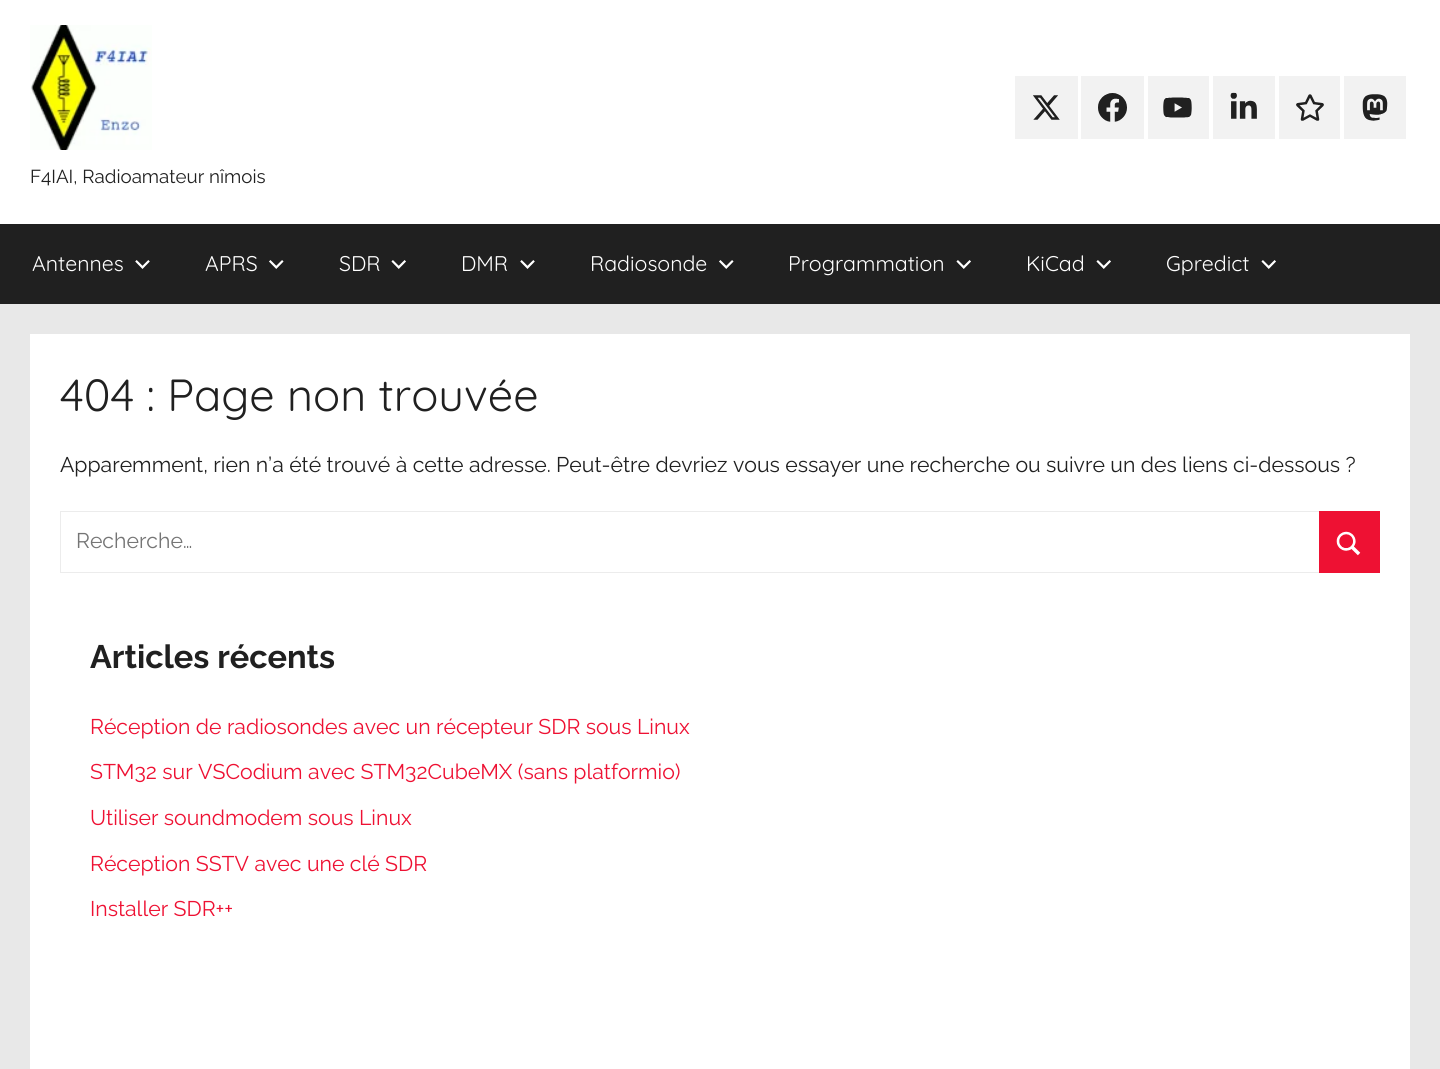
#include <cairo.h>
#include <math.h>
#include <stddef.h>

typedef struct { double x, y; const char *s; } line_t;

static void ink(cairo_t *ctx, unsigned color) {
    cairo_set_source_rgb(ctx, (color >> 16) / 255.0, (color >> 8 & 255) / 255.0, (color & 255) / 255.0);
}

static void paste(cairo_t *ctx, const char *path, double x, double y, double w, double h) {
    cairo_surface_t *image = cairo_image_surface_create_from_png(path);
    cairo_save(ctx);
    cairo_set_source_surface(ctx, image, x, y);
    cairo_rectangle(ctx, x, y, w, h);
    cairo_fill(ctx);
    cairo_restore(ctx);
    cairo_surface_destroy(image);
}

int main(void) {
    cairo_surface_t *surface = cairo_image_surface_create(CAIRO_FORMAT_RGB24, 1440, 1069);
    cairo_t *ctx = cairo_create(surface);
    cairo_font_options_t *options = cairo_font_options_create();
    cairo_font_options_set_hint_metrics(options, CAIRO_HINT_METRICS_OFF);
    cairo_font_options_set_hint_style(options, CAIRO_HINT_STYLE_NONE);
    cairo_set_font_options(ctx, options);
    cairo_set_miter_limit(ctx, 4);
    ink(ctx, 0xE8E8E8);
    cairo_paint(ctx);
    ink(ctx, 0xFFFFFF);
    cairo_rectangle(ctx, 0, 0, 1440, 224);
    cairo_fill(ctx);
    ink(ctx, 0xF2F2F2);
    cairo_rectangle(ctx, 1015, 76, 63, 63);
    cairo_fill(ctx);
    paste(ctx, "media/1.png", 1033, 95, 27, 25);
    cairo_rectangle(ctx, 1081, 76, 63, 63);
    cairo_fill(ctx);
    paste(ctx, "media/2.png", 1098, 93, 29, 29);
    cairo_rectangle(ctx, 1148, 76, 61, 63);
    cairo_fill(ctx);
    paste(ctx, "media/3.png", 1163, 97, 29, 21);
    cairo_rectangle(ctx, 1213, 76, 62, 63);
    cairo_fill(ctx);
    paste(ctx, "media/4.png", 1230, 92, 27, 27);
    cairo_rectangle(ctx, 1279, 76, 61, 63);
    cairo_fill(ctx);
    paste(ctx, "media/5.png", 1296, 94, 28, 27);
    cairo_rectangle(ctx, 1344, 76, 62, 63);
    cairo_fill(ctx);
    paste(ctx, "media/6.png", 1362, 94, 26, 27);
    paste(ctx, "media/7.png", 30, 25, 122, 125);
    cairo_select_font_face(ctx, "Raleway", CAIRO_FONT_SLANT_NORMAL, CAIRO_FONT_WEIGHT_NORMAL);
    cairo_set_font_size(ctx, 18.75);
    ink(ctx, 0x202020);
    cairo_move_to(ctx, 30, 183);
    cairo_show_text(ctx, "F4IAI, Radioamateur nîmois");
    cairo_rectangle(ctx, 0, 224, 1440, 80);
    cairo_fill(ctx);
    cairo_select_font_face(ctx, "Quicksand", CAIRO_FONT_SLANT_NORMAL, CAIRO_FONT_WEIGHT_NORMAL);
    cairo_set_font_size(ctx, 21.25);
    ink(ctx, 0xFFFFFF);
    cairo_move_to(ctx, 32, 271);
    cairo_show_text(ctx, "Antennes");
    paste(ctx, "media/8.png", 135, 260, 15, 9);
    cairo_move_to(ctx, 205, 271);
    cairo_show_text(ctx, "APRS");
    paste(ctx, "media/9.png", 269, 260, 15, 9);
    cairo_move_to(ctx, 339, 271);
    cairo_show_text(ctx, "SDR");
    paste(ctx, "media/10.png", 391, 260, 15, 9);
    cairo_move_to(ctx, 461, 271);
    cairo_show_text(ctx, "DMR");
    paste(ctx, "media/8.png", 520, 260, 15, 9);
    cairo_move_to(ctx, 590, 271);
    cairo_show_text(ctx, "Radiosonde");
    paste(ctx, "media/9.png", 719, 260, 15, 9);
    cairo_move_to(ctx, 788, 271);
    cairo_show_text(ctx, "Programmation");
    paste(ctx, "media/10.png", 956, 260, 15, 9);
    cairo_move_to(ctx, 1026, 271);
    cairo_show_text(ctx, "KiCad");
    paste(ctx, "media/10.png", 1096, 260, 15, 9);
    cairo_move_to(ctx, 1166, 271);
    cairo_show_text(ctx, "Gpredict");
    paste(ctx, "media/11.png", 1261, 260, 15, 9);
    cairo_rectangle(ctx, 30, 334, 1380, 735);
    cairo_fill(ctx);
    cairo_set_font_size(ctx, 45);
    ink(ctx, 0x202020);
    cairo_move_to(ctx, 60, 411);
    cairo_show_text(ctx, "404 : Page non trouvée");
    cairo_select_font_face(ctx, "Raleway", CAIRO_FONT_SLANT_NORMAL, CAIRO_FONT_WEIGHT_NORMAL);
    cairo_set_font_size(ctx, 21.25);
    cairo_move_to(ctx, 60, 472);
    cairo_show_text(ctx, "Apparemment, rien n’a été trouvé à cette adresse. Peut-être devriez vous essayer une recherche ou suivre un des liens ci-dessous ?");
    cairo_rectangle(ctx, 60.5, 511.5, 1319, 61);
    ink(ctx, 0xECECEC);
    cairo_set_line_width(ctx, 1);
    cairo_stroke(ctx);
    ink(ctx, 0x757575);
    cairo_move_to(ctx, 76, 548);
    cairo_show_text(ctx, "Recherche…");
    ink(ctx, 0xEE1133);
    cairo_rectangle(ctx, 1319, 511, 61, 62);
    cairo_fill(ctx);
    paste(ctx, "media/12.png", 1336, 531, 25, 25);
    cairo_select_font_face(ctx, "Raleway", CAIRO_FONT_SLANT_NORMAL, CAIRO_FONT_WEIGHT_BOLD);
    cairo_set_font_size(ctx, 32.5);
    ink(ctx, 0x202020);
    cairo_move_to(ctx, 90, 668);
    cairo_show_text(ctx, "Articles récents");
    cairo_select_font_face(ctx, "Raleway", CAIRO_FONT_SLANT_NORMAL, CAIRO_FONT_WEIGHT_NORMAL);
    cairo_set_font_size(ctx, 21.25);
    ink(ctx, 0xEE1133);
    {
        static const line_t items[] = {
            {90, 734, "Réception de radiosondes avec un récepteur SDR sous Linux"},
            {90, 779, "STM32 sur VSCodium avec STM32CubeMX (sans platformio)"},
            {90, 825, "Utiliser soundmodem sous Linux"},
            {90, 871, "Réception SSTV avec une clé SDR"},
            {90, 916, "Installer SDR++"},
        };
        for (size_t i = 0; i < sizeof items / sizeof *items; i++) {
            cairo_move_to(ctx, items[i].x, items[i].y);
            cairo_show_text(ctx, items[i].s);
        }
    }
    cairo_surface_write_to_png(surface, "image.png");
    cairo_font_options_destroy(options);
    cairo_destroy(ctx);
    cairo_surface_destroy(surface);
    return 0;
}
